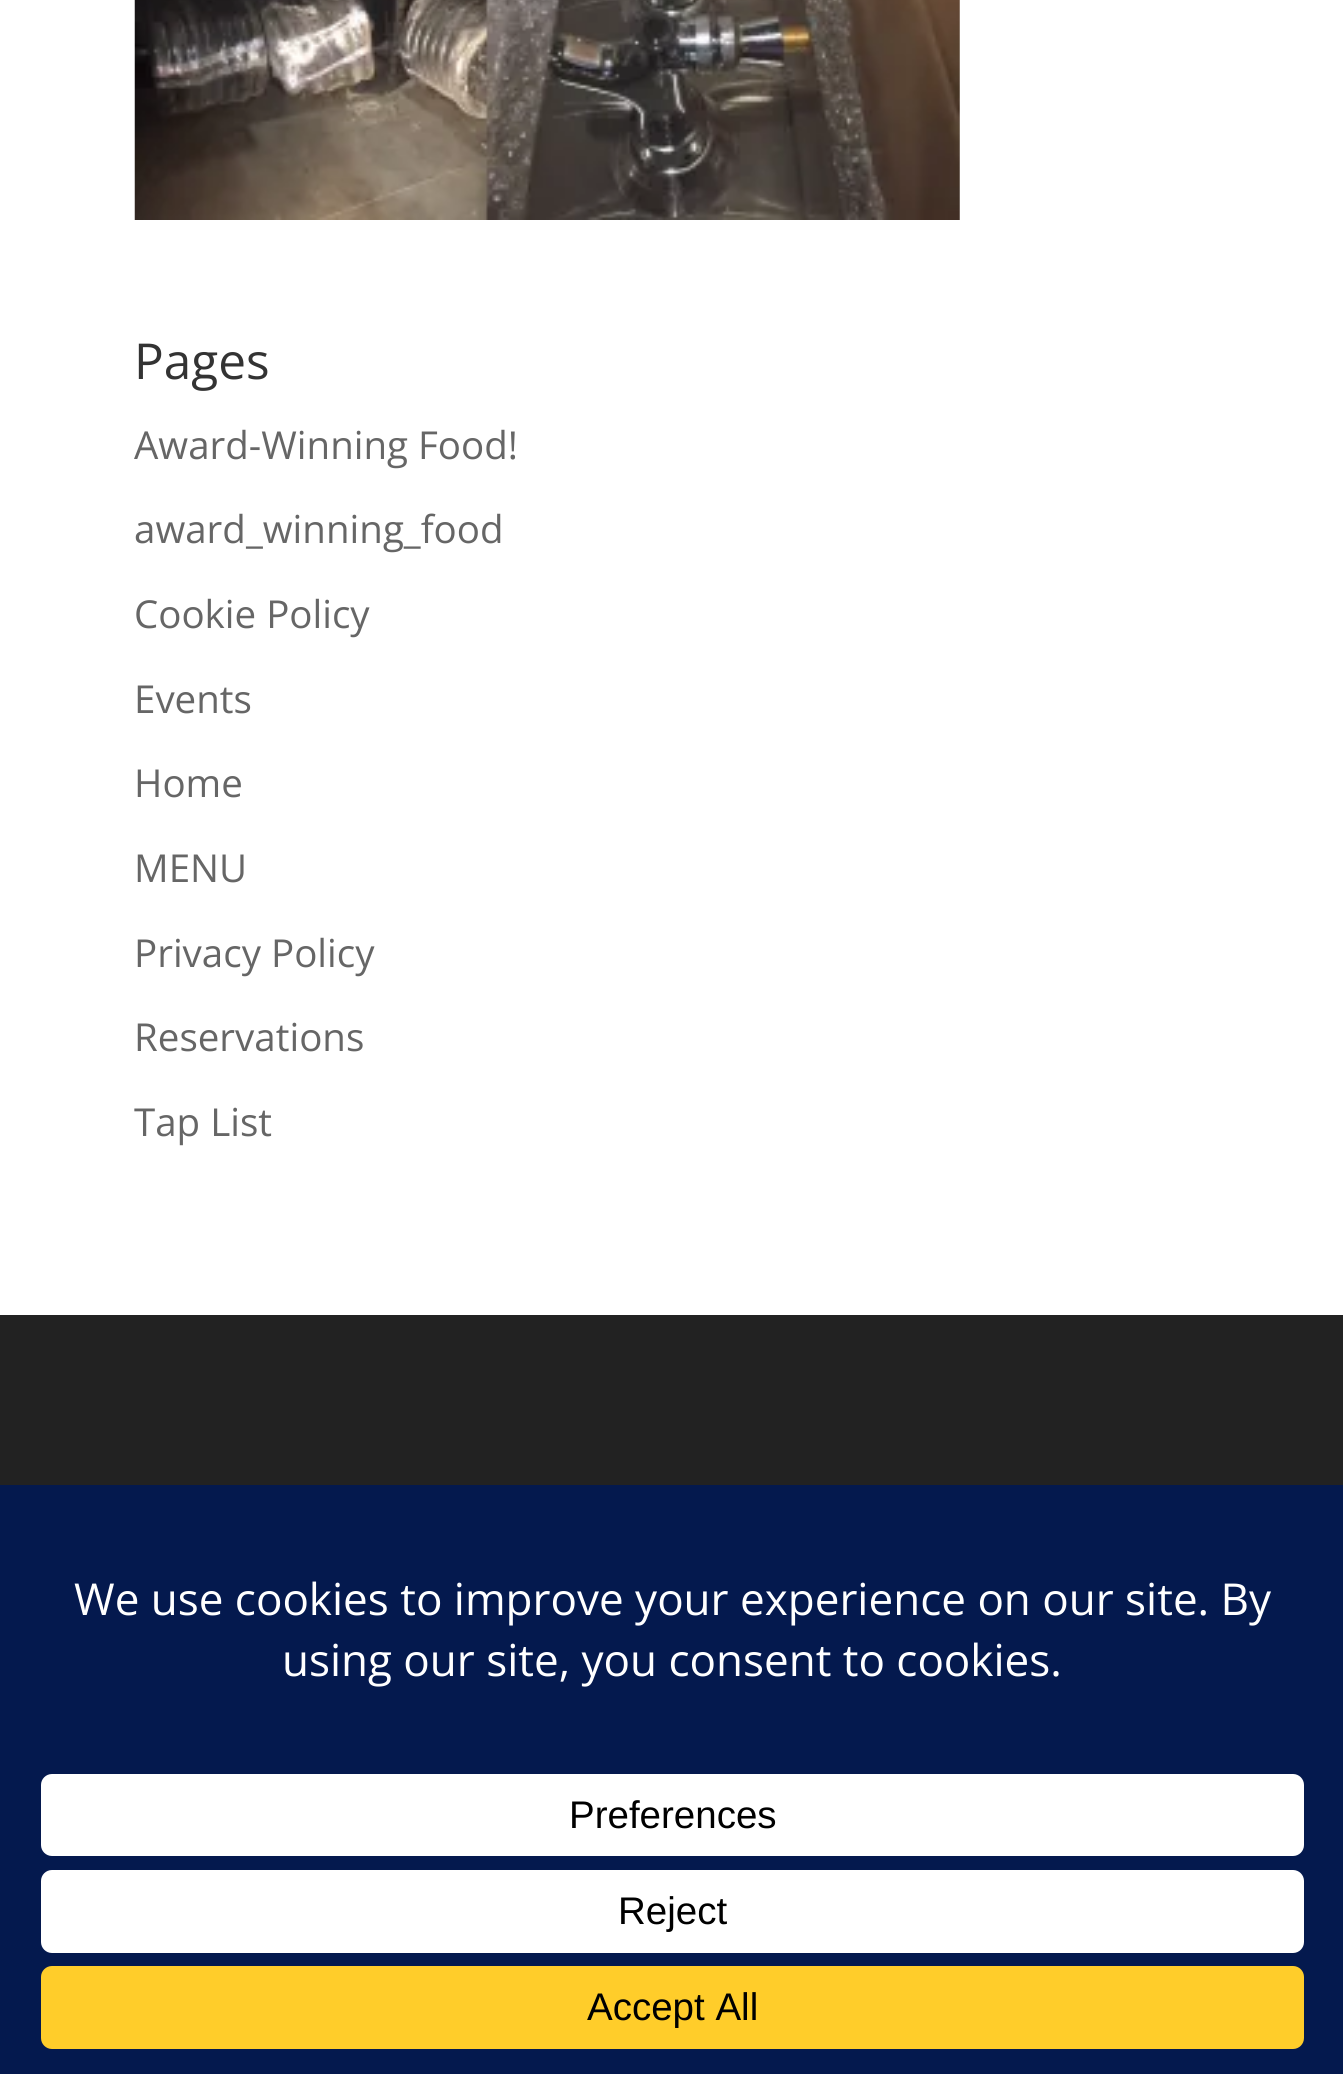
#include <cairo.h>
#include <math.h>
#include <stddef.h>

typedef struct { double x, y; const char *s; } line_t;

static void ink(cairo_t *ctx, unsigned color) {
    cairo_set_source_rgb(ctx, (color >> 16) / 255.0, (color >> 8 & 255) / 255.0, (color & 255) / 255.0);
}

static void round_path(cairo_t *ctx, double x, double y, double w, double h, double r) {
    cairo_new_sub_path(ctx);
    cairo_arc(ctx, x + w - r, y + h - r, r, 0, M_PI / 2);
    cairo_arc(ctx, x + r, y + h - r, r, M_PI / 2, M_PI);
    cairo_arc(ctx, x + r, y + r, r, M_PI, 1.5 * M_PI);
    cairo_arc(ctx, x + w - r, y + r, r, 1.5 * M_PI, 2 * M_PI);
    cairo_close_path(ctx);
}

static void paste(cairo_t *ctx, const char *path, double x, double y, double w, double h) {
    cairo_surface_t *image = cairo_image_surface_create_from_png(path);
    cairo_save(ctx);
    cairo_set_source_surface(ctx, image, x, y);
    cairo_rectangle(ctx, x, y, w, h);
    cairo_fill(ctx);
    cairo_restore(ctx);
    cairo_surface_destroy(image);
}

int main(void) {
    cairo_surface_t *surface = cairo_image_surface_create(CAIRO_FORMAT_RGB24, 1343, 2074);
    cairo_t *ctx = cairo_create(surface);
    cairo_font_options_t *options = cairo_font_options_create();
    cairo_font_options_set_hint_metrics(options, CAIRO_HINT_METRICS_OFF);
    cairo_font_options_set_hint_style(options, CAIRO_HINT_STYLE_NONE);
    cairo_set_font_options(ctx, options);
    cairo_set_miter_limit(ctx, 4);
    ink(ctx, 0xFFFFFF);
    cairo_paint(ctx);
    paste(ctx, "media/1.png", 134, 0, 826, 220);
    cairo_select_font_face(ctx, "Open Sans", CAIRO_FONT_SLANT_NORMAL, CAIRO_FONT_WEIGHT_NORMAL);
    cairo_set_font_size(ctx, 49.5);
    ink(ctx, 0x333333);
    cairo_move_to(ctx, 134, 379);
    cairo_show_text(ctx, "Pages");
    cairo_set_font_size(ctx, 38.5);
    ink(ctx, 0x666666);
    {
        static const line_t items[] = {
            {134, 459, "Award-Winning Food!"},
            {134, 543, "award_winning_food"},
            {134, 628, "Cookie Policy"},
            {134, 713, "Events"},
            {134, 797, "Home"},
            {134, 882, "MENU"},
            {134, 967, "Privacy Policy"},
            {134, 1051, "Reservations"},
            {134, 1136, "Tap List"},
        };
        for (size_t i = 0; i < sizeof items / sizeof *items; i++) {
            cairo_move_to(ctx, items[i].x, items[i].y);
            cairo_show_text(ctx, items[i].s);
        }
    }
    ink(ctx, 0x222222);
    cairo_rectangle(ctx, 0, 1315, 1343, 170);
    cairo_fill(ctx);
    ink(ctx, 0x04194E);
    cairo_rectangle(ctx, 0, 1485, 1343, 589);
    cairo_fill(ctx);
    cairo_set_font_size(ctx, 44);
    ink(ctx, 0xFFFFFF);
    cairo_move_to(ctx, 74, 1615);
    cairo_show_text(ctx, "We use cookies to improve your experience on our site. By");
    cairo_move_to(ctx, 282, 1676);
    cairo_show_text(ctx, "using our site, you consent to cookies.");
    round_path(ctx, 41, 1774, 1263, 82, 11);
    cairo_fill(ctx);
    cairo_select_font_face(ctx, "Liberation Sans", CAIRO_FONT_SLANT_NORMAL, CAIRO_FONT_WEIGHT_NORMAL);
    cairo_set_font_size(ctx, 38.5);
    ink(ctx, 0x000000);
    cairo_move_to(ctx, 569, 1828);
    cairo_show_text(ctx, "Preferences");
    ink(ctx, 0xFFFFFF);
    round_path(ctx, 41, 1870, 1263, 83, 11);
    cairo_fill(ctx);
    ink(ctx, 0x000000);
    cairo_move_to(ctx, 618, 1924);
    cairo_show_text(ctx, "Reject");
    ink(ctx, 0xFFCD2A);
    round_path(ctx, 41, 1966, 1263, 83, 11);
    cairo_fill(ctx);
    ink(ctx, 0x000000);
    cairo_move_to(ctx, 587, 2020);
    cairo_show_text(ctx, "Accept All");
    cairo_surface_write_to_png(surface, "image.png");
    cairo_font_options_destroy(options);
    cairo_destroy(ctx);
    cairo_surface_destroy(surface);
    return 0;
}
